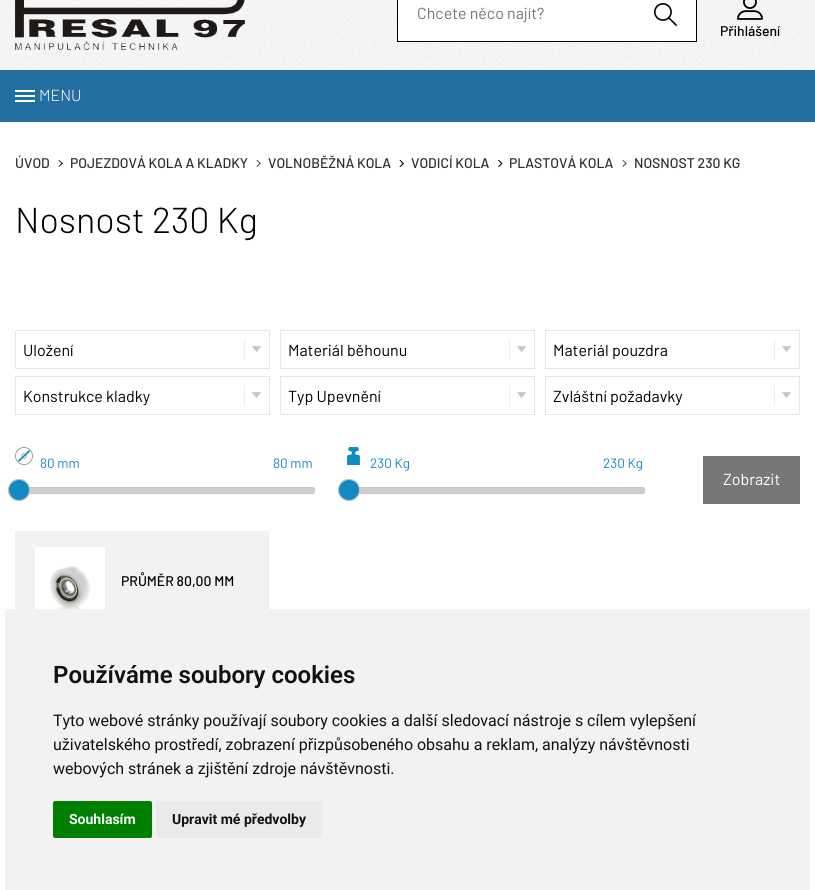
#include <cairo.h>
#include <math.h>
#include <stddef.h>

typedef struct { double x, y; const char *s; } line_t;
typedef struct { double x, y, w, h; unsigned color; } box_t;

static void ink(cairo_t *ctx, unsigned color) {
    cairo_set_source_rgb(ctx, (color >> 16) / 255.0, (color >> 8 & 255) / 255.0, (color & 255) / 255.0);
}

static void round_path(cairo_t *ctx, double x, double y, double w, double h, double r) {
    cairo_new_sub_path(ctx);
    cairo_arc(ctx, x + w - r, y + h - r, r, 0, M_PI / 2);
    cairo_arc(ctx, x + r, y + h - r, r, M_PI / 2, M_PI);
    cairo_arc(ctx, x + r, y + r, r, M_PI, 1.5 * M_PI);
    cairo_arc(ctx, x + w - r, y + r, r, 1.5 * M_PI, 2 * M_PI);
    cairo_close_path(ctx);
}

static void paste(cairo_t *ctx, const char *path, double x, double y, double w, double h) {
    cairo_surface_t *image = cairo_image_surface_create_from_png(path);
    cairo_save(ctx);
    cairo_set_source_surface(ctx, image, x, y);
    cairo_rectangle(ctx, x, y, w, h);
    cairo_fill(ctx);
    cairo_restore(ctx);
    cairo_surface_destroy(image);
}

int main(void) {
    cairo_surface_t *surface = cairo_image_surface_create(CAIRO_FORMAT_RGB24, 815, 890);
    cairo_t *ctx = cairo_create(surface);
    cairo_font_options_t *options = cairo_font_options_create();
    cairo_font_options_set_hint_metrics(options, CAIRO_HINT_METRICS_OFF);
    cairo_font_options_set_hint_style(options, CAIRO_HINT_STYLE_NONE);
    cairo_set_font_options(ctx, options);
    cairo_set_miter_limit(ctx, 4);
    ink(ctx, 0xFFFFFF);
    cairo_paint(ctx);
    paste(ctx, "media/1.png", 0, 0, 815, 70);
    paste(ctx, "media/2.png", 15, 0, 231, 50);
    ink(ctx, 0xFFFFFF);
    cairo_rectangle(ctx, 397.5, -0.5, 299, 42);
    cairo_fill_preserve(ctx);
    ink(ctx, 0x000000);
    cairo_set_line_width(ctx, 1);
    cairo_stroke(ctx);
    cairo_select_font_face(ctx, "Barlow", CAIRO_FONT_SLANT_NORMAL, CAIRO_FONT_WEIGHT_NORMAL);
    cairo_set_font_size(ctx, 16);
    ink(ctx, 0x757575);
    cairo_move_to(ctx, 417, 19);
    cairo_show_text(ctx, "Chcete něco najít?");
    paste(ctx, "media/3.png", 654, 3, 23, 23);
    paste(ctx, "media/4.png", 737, 0, 26, 20);
    cairo_select_font_face(ctx, "Barlow Medium", CAIRO_FONT_SLANT_NORMAL, CAIRO_FONT_WEIGHT_NORMAL);
    cairo_set_font_size(ctx, 14);
    ink(ctx, 0x000000);
    cairo_move_to(ctx, 720, 36);
    cairo_show_text(ctx, "Přihlášení");
    {
        static const box_t items[] = {
            {0, 70, 815, 52, 0x236FA1},
            {15, 100, 20, 2, 0xFFFFFF},
            {15, 95, 20, 2, 0xFFFFFF},
            {15, 90, 20, 2, 0xFFFFFF},
        };
        for (size_t i = 0; i < sizeof items / sizeof *items; i++) {
            ink(ctx, items[i].color);
            cairo_rectangle(ctx, items[i].x, items[i].y, items[i].w, items[i].h);
            cairo_fill(ctx);
        }
    }
    cairo_select_font_face(ctx, "Barlow Light", CAIRO_FONT_SLANT_NORMAL, CAIRO_FONT_WEIGHT_NORMAL);
    cairo_set_font_size(ctx, 16);
    cairo_move_to(ctx, 39, 101);
    cairo_show_text(ctx, "MENU");
    cairo_select_font_face(ctx, "Barlow Medium", CAIRO_FONT_SLANT_NORMAL, CAIRO_FONT_WEIGHT_NORMAL);
    cairo_set_font_size(ctx, 14);
    ink(ctx, 0x2D2D2D);
    cairo_move_to(ctx, 15, 168);
    cairo_show_text(ctx, "ÚVOD");
    ink(ctx, 0x000000);
    cairo_new_path(ctx);
    cairo_move_to(ctx, 58.5, 160.5);
    cairo_line_to(ctx, 59, 160);
    cairo_line_to(ctx, 63, 163.5);
    cairo_line_to(ctx, 62, 164);
    cairo_close_path(ctx);
    cairo_fill(ctx);
    cairo_new_path(ctx);
    cairo_move_to(ctx, 58.5, 166.5);
    cairo_line_to(ctx, 62, 163);
    cairo_line_to(ctx, 63, 163.5);
    cairo_line_to(ctx, 59, 167);
    cairo_close_path(ctx);
    cairo_fill(ctx);
    ink(ctx, 0x2D2D2D);
    cairo_move_to(ctx, 70, 168);
    cairo_show_text(ctx, "POJEZDOVÁ KOLA A KLADKY");
    ink(ctx, 0x000000);
    cairo_new_path(ctx);
    cairo_move_to(ctx, 256.5, 160.5);
    cairo_line_to(ctx, 257, 160);
    cairo_line_to(ctx, 260.5, 163.5);
    cairo_line_to(ctx, 260, 164);
    cairo_close_path(ctx);
    cairo_fill(ctx);
    cairo_new_path(ctx);
    cairo_move_to(ctx, 256.5, 166.5);
    cairo_line_to(ctx, 260, 163);
    cairo_line_to(ctx, 260.5, 163.5);
    cairo_line_to(ctx, 257, 167);
    cairo_close_path(ctx);
    cairo_fill(ctx);
    ink(ctx, 0x2D2D2D);
    cairo_move_to(ctx, 268, 168);
    cairo_show_text(ctx, "VOLNOBĚŽNÁ KOLA");
    ink(ctx, 0x000000);
    cairo_new_path(ctx);
    cairo_move_to(ctx, 399.5, 160.5);
    cairo_line_to(ctx, 400.5, 160);
    cairo_line_to(ctx, 404, 163.5);
    cairo_line_to(ctx, 403, 164);
    cairo_close_path(ctx);
    cairo_fill(ctx);
    cairo_new_path(ctx);
    cairo_move_to(ctx, 399.5, 166.5);
    cairo_line_to(ctx, 403, 163);
    cairo_line_to(ctx, 404, 163.5);
    cairo_line_to(ctx, 400.5, 167);
    cairo_close_path(ctx);
    cairo_fill(ctx);
    ink(ctx, 0x2D2D2D);
    cairo_move_to(ctx, 411, 168);
    cairo_show_text(ctx, "VODICÍ KOLA");
    ink(ctx, 0x000000);
    cairo_new_path(ctx);
    cairo_move_to(ctx, 498, 160.5);
    cairo_line_to(ctx, 499, 160);
    cairo_line_to(ctx, 502.5, 163.5);
    cairo_line_to(ctx, 501.5, 164);
    cairo_close_path(ctx);
    cairo_fill(ctx);
    cairo_new_path(ctx);
    cairo_move_to(ctx, 498, 166.5);
    cairo_line_to(ctx, 501.5, 163);
    cairo_line_to(ctx, 502.5, 163.5);
    cairo_line_to(ctx, 499, 167);
    cairo_close_path(ctx);
    cairo_fill(ctx);
    ink(ctx, 0x2D2D2D);
    cairo_move_to(ctx, 509, 168);
    cairo_show_text(ctx, "PLASTOVÁ KOLA");
    ink(ctx, 0x000000);
    cairo_new_path(ctx);
    cairo_move_to(ctx, 622.5, 160.5);
    cairo_line_to(ctx, 623, 160);
    cairo_line_to(ctx, 626.5, 163.5);
    cairo_line_to(ctx, 626, 164);
    cairo_close_path(ctx);
    cairo_fill(ctx);
    cairo_new_path(ctx);
    cairo_move_to(ctx, 622.5, 166.5);
    cairo_line_to(ctx, 626, 163);
    cairo_line_to(ctx, 626.5, 163.5);
    cairo_line_to(ctx, 623, 167);
    cairo_close_path(ctx);
    cairo_fill(ctx);
    ink(ctx, 0x2D2D2D);
    cairo_move_to(ctx, 634, 168);
    cairo_show_text(ctx, "NOSNOST 230 KG");
    cairo_select_font_face(ctx, "Barlow Light", CAIRO_FONT_SLANT_NORMAL, CAIRO_FONT_WEIGHT_NORMAL);
    cairo_set_font_size(ctx, 36);
    ink(ctx, 0x000000);
    cairo_move_to(ctx, 15, 233);
    cairo_show_text(ctx, "Nosnost 230 Kg");
    paste(ctx, "media/5.png", 244, 339, 17, 21);
    cairo_rectangle(ctx, 15.5, 330.5, 254, 38);
    ink(ctx, 0xE6E6E6);
    cairo_stroke(ctx);
    cairo_select_font_face(ctx, "Barlow", CAIRO_FONT_SLANT_NORMAL, CAIRO_FONT_WEIGHT_NORMAL);
    cairo_set_font_size(ctx, 16);
    ink(ctx, 0x000000);
    cairo_move_to(ctx, 23, 356);
    cairo_show_text(ctx, "Uložení");
    paste(ctx, "media/5.png", 509, 339, 17, 21);
    cairo_rectangle(ctx, 280.5, 330.5, 254, 38);
    ink(ctx, 0xE6E6E6);
    cairo_stroke(ctx);
    ink(ctx, 0x000000);
    cairo_move_to(ctx, 288, 356);
    cairo_show_text(ctx, "Materiál běhounu");
    paste(ctx, "media/5.png", 774, 339, 17, 21);
    cairo_rectangle(ctx, 545.5, 330.5, 254, 38);
    ink(ctx, 0xE6E6E6);
    cairo_stroke(ctx);
    ink(ctx, 0x000000);
    cairo_move_to(ctx, 553, 356);
    cairo_show_text(ctx, "Materiál pouzdra");
    paste(ctx, "media/5.png", 244, 385, 17, 21);
    cairo_rectangle(ctx, 15.5, 376.5, 254, 38);
    ink(ctx, 0xE6E6E6);
    cairo_stroke(ctx);
    ink(ctx, 0x000000);
    cairo_move_to(ctx, 23, 402);
    cairo_show_text(ctx, "Konstrukce kladky");
    paste(ctx, "media/5.png", 509, 385, 17, 21);
    cairo_rectangle(ctx, 280.5, 376.5, 254, 38);
    ink(ctx, 0xE6E6E6);
    cairo_stroke(ctx);
    ink(ctx, 0x000000);
    cairo_move_to(ctx, 288, 402);
    cairo_show_text(ctx, "Typ Upevnění");
    paste(ctx, "media/5.png", 774, 385, 17, 21);
    cairo_rectangle(ctx, 545.5, 376.5, 254, 38);
    ink(ctx, 0xE6E6E6);
    cairo_stroke(ctx);
    ink(ctx, 0x000000);
    cairo_move_to(ctx, 553, 402);
    cairo_show_text(ctx, "Zvláštní požadavky");
    paste(ctx, "media/6.png", 15, 447, 18, 18);
    cairo_set_font_size(ctx, 13.5);
    ink(ctx, 0x118BBF);
    cairo_move_to(ctx, 40, 468);
    cairo_show_text(ctx, "80 mm");
    cairo_move_to(ctx, 273, 468);
    cairo_show_text(ctx, "80 mm");
    ink(ctx, 0xCDCECF);
    round_path(ctx, 15.5, 487.5, 299, 6, 2);
    cairo_fill_preserve(ctx);
    ink(ctx, 0xC5C5C5);
    cairo_stroke(ctx);
    cairo_arc(ctx, 19, 490, 10.5, 0, 2 * M_PI);
    cairo_stroke(ctx);
    ink(ctx, 0x118BBF);
    cairo_arc(ctx, 19, 490, 10.5, 0, 2 * M_PI);
    cairo_fill_preserve(ctx);
    ink(ctx, 0xC5C5C5);
    cairo_stroke(ctx);
    paste(ctx, "media/7.png", 347, 447, 13, 18);
    ink(ctx, 0x118BBF);
    cairo_move_to(ctx, 370, 468);
    cairo_show_text(ctx, "230 Kg");
    cairo_move_to(ctx, 603, 468);
    cairo_show_text(ctx, "230 Kg");
    ink(ctx, 0xCDCECF);
    round_path(ctx, 345.5, 487.5, 299, 6, 2);
    cairo_fill_preserve(ctx);
    ink(ctx, 0xC5C5C5);
    cairo_stroke(ctx);
    cairo_arc(ctx, 349, 490, 10.5, 0, 2 * M_PI);
    cairo_stroke(ctx);
    ink(ctx, 0x118BBF);
    cairo_arc(ctx, 349, 490, 10.5, 0, 2 * M_PI);
    cairo_fill_preserve(ctx);
    ink(ctx, 0xC5C5C5);
    cairo_stroke(ctx);
    ink(ctx, 0x777777);
    cairo_rectangle(ctx, 703, 456, 97, 48);
    cairo_fill(ctx);
    cairo_set_font_size(ctx, 16);
    ink(ctx, 0xFFFFFF);
    cairo_move_to(ctx, 723, 485);
    cairo_show_text(ctx, "Zobrazit");
    ink(ctx, 0xF2F2F2);
    cairo_rectangle(ctx, 15, 531, 254, 78);
    cairo_fill(ctx);
    paste(ctx, "media/8.png", 35, 547, 70, 62);
    cairo_select_font_face(ctx, "Barlow Medium", CAIRO_FONT_SLANT_NORMAL, CAIRO_FONT_WEIGHT_NORMAL);
    cairo_set_font_size(ctx, 14);
    ink(ctx, 0x000000);
    cairo_move_to(ctx, 121, 586);
    cairo_show_text(ctx, "PRŮMĚR 80,00 MM");
    ink(ctx, 0xF2F2F2);
    cairo_rectangle(ctx, 5, 609, 805, 281);
    cairo_fill(ctx);
    cairo_select_font_face(ctx, "Roboto SemiBold", CAIRO_FONT_SLANT_NORMAL, CAIRO_FONT_WEIGHT_NORMAL);
    cairo_set_font_size(ctx, 24);
    ink(ctx, 0x111111);
    cairo_move_to(ctx, 53, 683);
    cairo_show_text(ctx, "Používáme soubory cookies");
    cairo_select_font_face(ctx, "Roboto", CAIRO_FONT_SLANT_NORMAL, CAIRO_FONT_WEIGHT_NORMAL);
    cairo_set_font_size(ctx, 16);
    {
        static const line_t items[] = {
            {53, 726, "Tyto webové stránky používají soubory cookies a další sledovací nástroje s cílem vylepšení"},
            {53, 750, "uživatelského prostředí, zobrazení přizpůsobeného obsahu a reklam, analýzy návštěvnosti"},
            {53, 774, "webových stránek a zjištění zdroje návštěvnosti."},
        };
        for (size_t i = 0; i < sizeof items / sizeof *items; i++) {
            cairo_move_to(ctx, items[i].x, items[i].y);
            cairo_show_text(ctx, items[i].s);
        }
    }
    ink(ctx, 0x008000);
    round_path(ctx, 53, 801, 99, 37, 2);
    cairo_fill(ctx);
    cairo_select_font_face(ctx, "Roboto", CAIRO_FONT_SLANT_NORMAL, CAIRO_FONT_WEIGHT_BOLD);
    cairo_set_font_size(ctx, 14);
    ink(ctx, 0xFFFFFF);
    cairo_move_to(ctx, 69, 824);
    cairo_show_text(ctx, "Souhlasím");
    ink(ctx, 0xEAEAEA);
    round_path(ctx, 156, 801, 166, 37, 2);
    cairo_fill(ctx);
    ink(ctx, 0x111111);
    cairo_move_to(ctx, 172, 824);
    cairo_show_text(ctx, "Upravit mé předvolby");
    cairo_surface_write_to_png(surface, "image.png");
    cairo_font_options_destroy(options);
    cairo_destroy(ctx);
    cairo_surface_destroy(surface);
    return 0;
}
